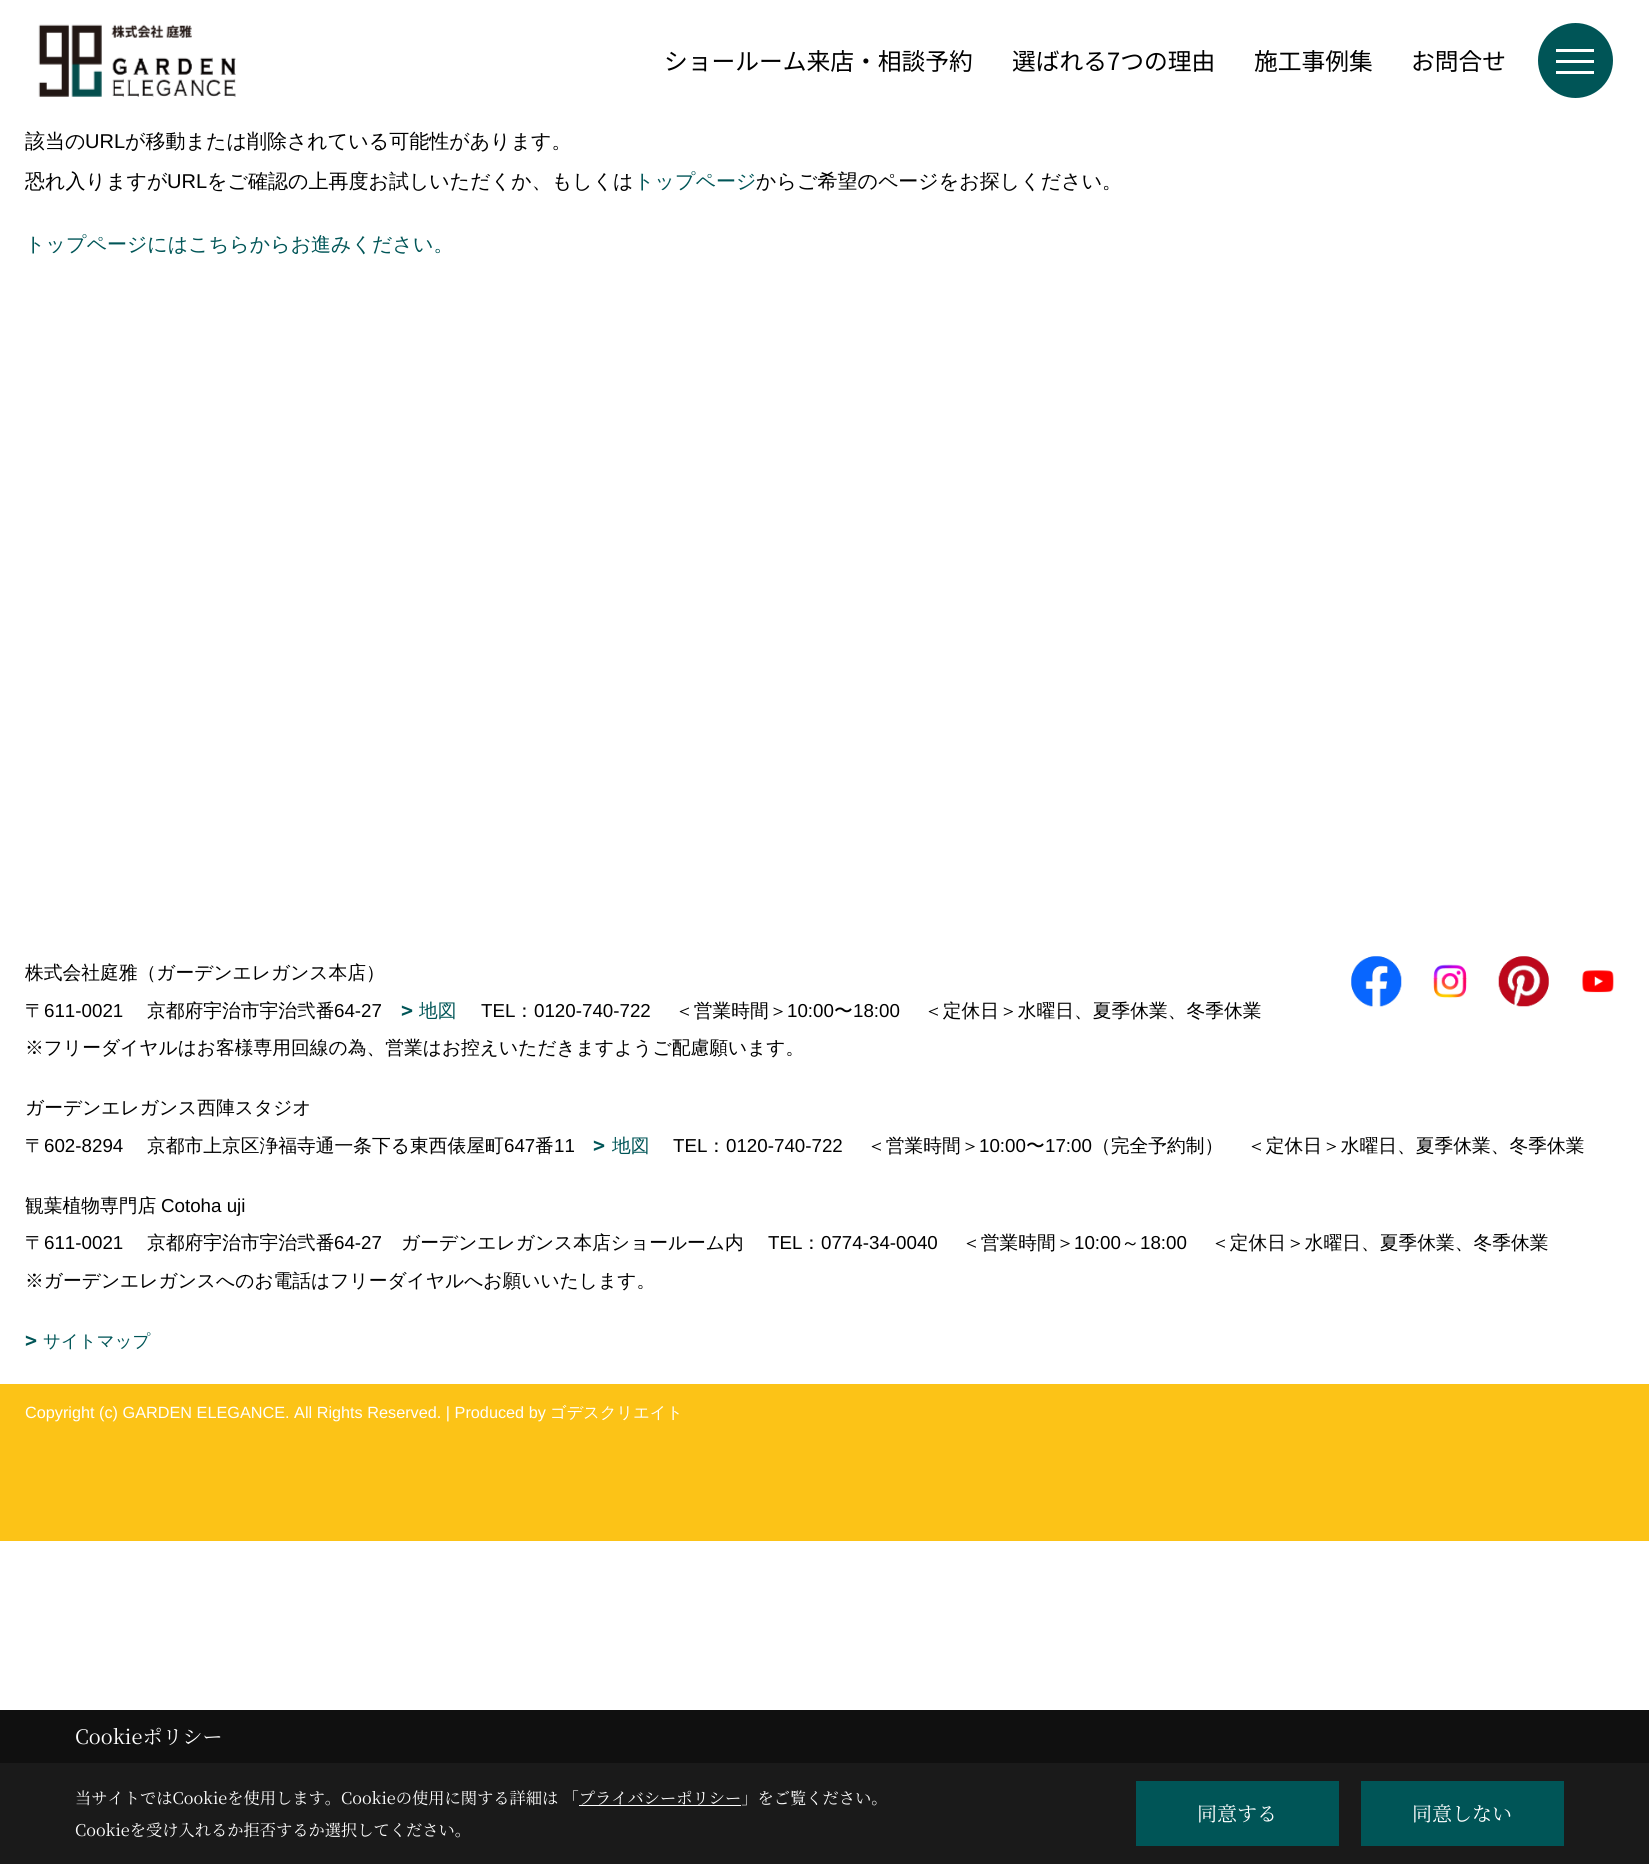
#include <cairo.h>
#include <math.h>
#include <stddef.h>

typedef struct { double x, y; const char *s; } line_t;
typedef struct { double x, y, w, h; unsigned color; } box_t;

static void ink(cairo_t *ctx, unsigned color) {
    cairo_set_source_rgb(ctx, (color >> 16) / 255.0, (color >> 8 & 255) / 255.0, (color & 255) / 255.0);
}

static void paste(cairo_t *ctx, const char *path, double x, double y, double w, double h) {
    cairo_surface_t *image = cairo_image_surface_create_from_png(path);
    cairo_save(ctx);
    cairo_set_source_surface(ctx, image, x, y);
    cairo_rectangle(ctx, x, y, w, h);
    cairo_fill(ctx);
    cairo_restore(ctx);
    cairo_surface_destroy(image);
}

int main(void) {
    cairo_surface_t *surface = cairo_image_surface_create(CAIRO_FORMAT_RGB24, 1649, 1864);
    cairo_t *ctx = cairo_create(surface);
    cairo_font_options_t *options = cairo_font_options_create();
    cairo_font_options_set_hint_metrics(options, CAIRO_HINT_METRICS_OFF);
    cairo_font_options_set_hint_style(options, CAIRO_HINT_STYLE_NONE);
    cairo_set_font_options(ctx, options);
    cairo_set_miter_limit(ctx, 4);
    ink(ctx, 0xFFFFFF);
    cairo_paint(ctx);
    paste(ctx, "media/1.png", 38, 24, 198, 73);
    cairo_select_font_face(ctx, "Noto Sans JP Thin", CAIRO_FONT_SLANT_NORMAL, CAIRO_FONT_WEIGHT_NORMAL);
    cairo_set_font_size(ctx, 23.75);
    ink(ctx, 0x000000);
    {
        static const line_t items[] = {
            {664, 70, "ショールーム来店・相談予約"},
            {1012, 70, "選ばれる7つの理由"},
            {1254, 70, "施工事例集"},
            {1411, 70, "お問合せ"},
        };
        for (size_t i = 0; i < sizeof items / sizeof *items; i++) {
            cairo_move_to(ctx, items[i].x, items[i].y);
            cairo_show_text(ctx, items[i].s);
        }
    }
    ink(ctx, 0x005557);
    cairo_new_path(ctx);
    cairo_arc(ctx, 1575.5, 60.5, 37.5, 0, 2 * M_PI);
    cairo_fill(ctx);
    {
        static const box_t items[] = {
            {1556, 49, 38, 3, 0xFFFFFF},
            {1556, 60, 38, 3, 0xFFFFFF},
            {1556, 71, 38, 3, 0xFFFFFF},
        };
        for (size_t i = 0; i < sizeof items / sizeof *items; i++) {
            ink(ctx, items[i].color);
            cairo_rectangle(ctx, items[i].x, items[i].y, items[i].w, items[i].h);
            cairo_fill(ctx);
        }
    }
    cairo_select_font_face(ctx, "WenQuanYi Zen Hei Medium", CAIRO_FONT_SLANT_NORMAL, CAIRO_FONT_WEIGHT_NORMAL);
    cairo_set_font_size(ctx, 20);
    ink(ctx, 0x000000);
    cairo_move_to(ctx, 25, 148);
    cairo_show_text(ctx, "該当の");
    cairo_select_font_face(ctx, "Liberation Sans", CAIRO_FONT_SLANT_NORMAL, CAIRO_FONT_WEIGHT_NORMAL);
    cairo_move_to(ctx, 85, 148);
    cairo_show_text(ctx, "URL");
    cairo_select_font_face(ctx, "WenQuanYi Zen Hei Medium", CAIRO_FONT_SLANT_NORMAL, CAIRO_FONT_WEIGHT_NORMAL);
    cairo_move_to(ctx, 125, 148);
    cairo_show_text(ctx, "が移動または削除されている可能性があります。");
    cairo_move_to(ctx, 25, 188);
    cairo_show_text(ctx, "恐れ入りますが");
    cairo_select_font_face(ctx, "Liberation Sans", CAIRO_FONT_SLANT_NORMAL, CAIRO_FONT_WEIGHT_NORMAL);
    cairo_move_to(ctx, 167, 188);
    cairo_show_text(ctx, "URL");
    cairo_select_font_face(ctx, "WenQuanYi Zen Hei Medium", CAIRO_FONT_SLANT_NORMAL, CAIRO_FONT_WEIGHT_NORMAL);
    cairo_move_to(ctx, 207, 188);
    cairo_show_text(ctx, "をご確認の上再度お試しいただくか、もしくは");
    ink(ctx, 0x005557);
    cairo_move_to(ctx, 634, 188);
    cairo_show_text(ctx, "トップページ");
    ink(ctx, 0x000000);
    cairo_move_to(ctx, 756, 188);
    cairo_show_text(ctx, "からご希望のページをお探しください。");
    ink(ctx, 0x005557);
    cairo_move_to(ctx, 25, 251);
    cairo_show_text(ctx, "トップページにはこちらからお進みください。");
    cairo_set_font_size(ctx, 18.75);
    ink(ctx, 0x000000);
    cairo_move_to(ctx, 25, 979);
    cairo_show_text(ctx, "株式会社庭雅（ガーデンエレガンス本店）");
    cairo_move_to(ctx, 25, 1017);
    cairo_show_text(ctx, "〒");
    cairo_select_font_face(ctx, "Liberation Sans", CAIRO_FONT_SLANT_NORMAL, CAIRO_FONT_WEIGHT_NORMAL);
    cairo_move_to(ctx, 44, 1017);
    cairo_show_text(ctx, "611-0021");
    cairo_select_font_face(ctx, "WenQuanYi Zen Hei Medium", CAIRO_FONT_SLANT_NORMAL, CAIRO_FONT_WEIGHT_NORMAL);
    cairo_move_to(ctx, 147, 1017);
    cairo_show_text(ctx, "京都府宇治市宇治弐番");
    cairo_select_font_face(ctx, "Liberation Sans", CAIRO_FONT_SLANT_NORMAL, CAIRO_FONT_WEIGHT_NORMAL);
    cairo_move_to(ctx, 334, 1017);
    cairo_show_text(ctx, "64-27");
    cairo_select_font_face(ctx, "DejaVu Sans Mono", CAIRO_FONT_SLANT_NORMAL, CAIRO_FONT_WEIGHT_BOLD);
    cairo_set_font_size(ctx, 20);
    ink(ctx, 0x005557);
    cairo_move_to(ctx, 401, 1017);
    cairo_show_text(ctx, ">");
    cairo_select_font_face(ctx, "WenQuanYi Zen Hei Medium", CAIRO_FONT_SLANT_NORMAL, CAIRO_FONT_WEIGHT_NORMAL);
    cairo_set_font_size(ctx, 18.75);
    cairo_move_to(ctx, 419, 1017);
    cairo_show_text(ctx, "地図");
    cairo_select_font_face(ctx, "Liberation Sans", CAIRO_FONT_SLANT_NORMAL, CAIRO_FONT_WEIGHT_NORMAL);
    ink(ctx, 0x000000);
    cairo_move_to(ctx, 481, 1017);
    cairo_show_text(ctx, "TEL");
    cairo_select_font_face(ctx, "WenQuanYi Zen Hei Medium", CAIRO_FONT_SLANT_NORMAL, CAIRO_FONT_WEIGHT_NORMAL);
    cairo_move_to(ctx, 515, 1017);
    cairo_show_text(ctx, "：");
    cairo_select_font_face(ctx, "Liberation Sans", CAIRO_FONT_SLANT_NORMAL, CAIRO_FONT_WEIGHT_NORMAL);
    cairo_move_to(ctx, 534, 1017);
    cairo_show_text(ctx, "0120-740-722");
    cairo_select_font_face(ctx, "WenQuanYi Zen Hei Medium", CAIRO_FONT_SLANT_NORMAL, CAIRO_FONT_WEIGHT_NORMAL);
    cairo_move_to(ctx, 675, 1017);
    cairo_show_text(ctx, "＜営業時間＞");
    cairo_select_font_face(ctx, "Liberation Sans", CAIRO_FONT_SLANT_NORMAL, CAIRO_FONT_WEIGHT_NORMAL);
    cairo_move_to(ctx, 787, 1017);
    cairo_show_text(ctx, "10:00");
    cairo_select_font_face(ctx, "WenQuanYi Zen Hei Medium", CAIRO_FONT_SLANT_NORMAL, CAIRO_FONT_WEIGHT_NORMAL);
    cairo_move_to(ctx, 834, 1017);
    cairo_show_text(ctx, "〜");
    cairo_select_font_face(ctx, "Liberation Sans", CAIRO_FONT_SLANT_NORMAL, CAIRO_FONT_WEIGHT_NORMAL);
    cairo_move_to(ctx, 853, 1017);
    cairo_show_text(ctx, "18:00");
    cairo_select_font_face(ctx, "WenQuanYi Zen Hei Medium", CAIRO_FONT_SLANT_NORMAL, CAIRO_FONT_WEIGHT_NORMAL);
    cairo_move_to(ctx, 924, 1017);
    cairo_show_text(ctx, "＜定休日＞水曜日、夏季休業、冬季休業");
    cairo_move_to(ctx, 25, 1054);
    cairo_show_text(ctx, "※フリーダイヤルはお客様専用回線の為、営業はお控えいただきますようご配慮願います。");
    paste(ctx, "media/2.png", 1351, 956, 51, 51);
    paste(ctx, "media/3.png", 1433, 964, 34, 34);
    paste(ctx, "media/4.png", 1498, 956, 51, 51);
    paste(ctx, "media/5.png", 1582, 970, 32, 23);
    cairo_move_to(ctx, 25, 1114);
    cairo_show_text(ctx, "ガーデンエレガンス西陣スタジオ");
    cairo_move_to(ctx, 25, 1152);
    cairo_show_text(ctx, "〒");
    cairo_select_font_face(ctx, "Liberation Sans", CAIRO_FONT_SLANT_NORMAL, CAIRO_FONT_WEIGHT_NORMAL);
    cairo_move_to(ctx, 44, 1152);
    cairo_show_text(ctx, "602-8294");
    cairo_select_font_face(ctx, "WenQuanYi Zen Hei Medium", CAIRO_FONT_SLANT_NORMAL, CAIRO_FONT_WEIGHT_NORMAL);
    cairo_move_to(ctx, 147, 1152);
    cairo_show_text(ctx, "京都市上京区浄福寺通一条下る東西俵屋町");
    cairo_select_font_face(ctx, "Liberation Sans", CAIRO_FONT_SLANT_NORMAL, CAIRO_FONT_WEIGHT_NORMAL);
    cairo_move_to(ctx, 504, 1152);
    cairo_show_text(ctx, "647");
    cairo_select_font_face(ctx, "WenQuanYi Zen Hei Medium", CAIRO_FONT_SLANT_NORMAL, CAIRO_FONT_WEIGHT_NORMAL);
    cairo_move_to(ctx, 535, 1152);
    cairo_show_text(ctx, "番");
    cairo_select_font_face(ctx, "Liberation Sans", CAIRO_FONT_SLANT_NORMAL, CAIRO_FONT_WEIGHT_NORMAL);
    cairo_move_to(ctx, 554, 1152);
    cairo_show_text(ctx, "11");
    cairo_select_font_face(ctx, "DejaVu Sans Mono", CAIRO_FONT_SLANT_NORMAL, CAIRO_FONT_WEIGHT_BOLD);
    cairo_set_font_size(ctx, 20);
    ink(ctx, 0x005557);
    cairo_move_to(ctx, 593, 1152);
    cairo_show_text(ctx, ">");
    cairo_select_font_face(ctx, "WenQuanYi Zen Hei Medium", CAIRO_FONT_SLANT_NORMAL, CAIRO_FONT_WEIGHT_NORMAL);
    cairo_set_font_size(ctx, 18.75);
    cairo_move_to(ctx, 612, 1152);
    cairo_show_text(ctx, "地図");
    cairo_select_font_face(ctx, "Liberation Sans", CAIRO_FONT_SLANT_NORMAL, CAIRO_FONT_WEIGHT_NORMAL);
    ink(ctx, 0x000000);
    cairo_move_to(ctx, 673, 1152);
    cairo_show_text(ctx, "TEL");
    cairo_select_font_face(ctx, "WenQuanYi Zen Hei Medium", CAIRO_FONT_SLANT_NORMAL, CAIRO_FONT_WEIGHT_NORMAL);
    cairo_move_to(ctx, 707, 1152);
    cairo_show_text(ctx, "：");
    cairo_select_font_face(ctx, "Liberation Sans", CAIRO_FONT_SLANT_NORMAL, CAIRO_FONT_WEIGHT_NORMAL);
    cairo_move_to(ctx, 726, 1152);
    cairo_show_text(ctx, "0120-740-722");
    cairo_select_font_face(ctx, "WenQuanYi Zen Hei Medium", CAIRO_FONT_SLANT_NORMAL, CAIRO_FONT_WEIGHT_NORMAL);
    cairo_move_to(ctx, 867, 1152);
    cairo_show_text(ctx, "＜営業時間＞");
    cairo_select_font_face(ctx, "Liberation Sans", CAIRO_FONT_SLANT_NORMAL, CAIRO_FONT_WEIGHT_NORMAL);
    cairo_move_to(ctx, 979, 1152);
    cairo_show_text(ctx, "10:00");
    cairo_select_font_face(ctx, "WenQuanYi Zen Hei Medium", CAIRO_FONT_SLANT_NORMAL, CAIRO_FONT_WEIGHT_NORMAL);
    cairo_move_to(ctx, 1026, 1152);
    cairo_show_text(ctx, "〜");
    cairo_select_font_face(ctx, "Liberation Sans", CAIRO_FONT_SLANT_NORMAL, CAIRO_FONT_WEIGHT_NORMAL);
    cairo_move_to(ctx, 1045, 1152);
    cairo_show_text(ctx, "17:00");
    cairo_select_font_face(ctx, "WenQuanYi Zen Hei Medium", CAIRO_FONT_SLANT_NORMAL, CAIRO_FONT_WEIGHT_NORMAL);
    {
        static const line_t items[] = {
            {1092, 1152, "（完全予約制）"},
            {1247, 1152, "＜定休日＞水曜日、夏季休業、冬季休業"},
            {25, 1212, "観葉植物専門店"},
        };
        for (size_t i = 0; i < sizeof items / sizeof *items; i++) {
            cairo_move_to(ctx, items[i].x, items[i].y);
            cairo_show_text(ctx, items[i].s);
        }
    }
    cairo_select_font_face(ctx, "Liberation Sans", CAIRO_FONT_SLANT_NORMAL, CAIRO_FONT_WEIGHT_NORMAL);
    cairo_move_to(ctx, 161, 1212);
    cairo_show_text(ctx, "Cotoha uji");
    cairo_select_font_face(ctx, "WenQuanYi Zen Hei Medium", CAIRO_FONT_SLANT_NORMAL, CAIRO_FONT_WEIGHT_NORMAL);
    cairo_move_to(ctx, 25, 1249);
    cairo_show_text(ctx, "〒");
    cairo_select_font_face(ctx, "Liberation Sans", CAIRO_FONT_SLANT_NORMAL, CAIRO_FONT_WEIGHT_NORMAL);
    cairo_move_to(ctx, 44, 1249);
    cairo_show_text(ctx, "611-0021");
    cairo_select_font_face(ctx, "WenQuanYi Zen Hei Medium", CAIRO_FONT_SLANT_NORMAL, CAIRO_FONT_WEIGHT_NORMAL);
    cairo_move_to(ctx, 147, 1249);
    cairo_show_text(ctx, "京都府宇治市宇治弐番");
    cairo_select_font_face(ctx, "Liberation Sans", CAIRO_FONT_SLANT_NORMAL, CAIRO_FONT_WEIGHT_NORMAL);
    cairo_move_to(ctx, 334, 1249);
    cairo_show_text(ctx, "64-27");
    cairo_select_font_face(ctx, "WenQuanYi Zen Hei Medium", CAIRO_FONT_SLANT_NORMAL, CAIRO_FONT_WEIGHT_NORMAL);
    cairo_move_to(ctx, 401, 1249);
    cairo_show_text(ctx, "ガーデンエレガンス本店ショールーム内");
    cairo_select_font_face(ctx, "Liberation Sans", CAIRO_FONT_SLANT_NORMAL, CAIRO_FONT_WEIGHT_NORMAL);
    cairo_move_to(ctx, 768, 1249);
    cairo_show_text(ctx, "TEL");
    cairo_select_font_face(ctx, "WenQuanYi Zen Hei Medium", CAIRO_FONT_SLANT_NORMAL, CAIRO_FONT_WEIGHT_NORMAL);
    cairo_move_to(ctx, 802, 1249);
    cairo_show_text(ctx, "：");
    cairo_select_font_face(ctx, "Liberation Sans", CAIRO_FONT_SLANT_NORMAL, CAIRO_FONT_WEIGHT_NORMAL);
    cairo_move_to(ctx, 821, 1249);
    cairo_show_text(ctx, "0774-34-0040");
    cairo_select_font_face(ctx, "WenQuanYi Zen Hei Medium", CAIRO_FONT_SLANT_NORMAL, CAIRO_FONT_WEIGHT_NORMAL);
    cairo_move_to(ctx, 962, 1249);
    cairo_show_text(ctx, "＜営業時間＞");
    cairo_select_font_face(ctx, "Liberation Sans", CAIRO_FONT_SLANT_NORMAL, CAIRO_FONT_WEIGHT_NORMAL);
    cairo_move_to(ctx, 1074, 1249);
    cairo_show_text(ctx, "10:00");
    cairo_select_font_face(ctx, "WenQuanYi Zen Hei Medium", CAIRO_FONT_SLANT_NORMAL, CAIRO_FONT_WEIGHT_NORMAL);
    cairo_move_to(ctx, 1121, 1249);
    cairo_show_text(ctx, "～");
    cairo_select_font_face(ctx, "Liberation Sans", CAIRO_FONT_SLANT_NORMAL, CAIRO_FONT_WEIGHT_NORMAL);
    cairo_move_to(ctx, 1140, 1249);
    cairo_show_text(ctx, "18:00");
    cairo_select_font_face(ctx, "WenQuanYi Zen Hei Medium", CAIRO_FONT_SLANT_NORMAL, CAIRO_FONT_WEIGHT_NORMAL);
    cairo_move_to(ctx, 1211, 1249);
    cairo_show_text(ctx, "＜定休日＞水曜日、夏季休業、冬季休業");
    cairo_move_to(ctx, 25, 1287);
    cairo_show_text(ctx, "※ガーデンエレガンスへのお電話はフリーダイヤルへお願いいたします。");
    cairo_select_font_face(ctx, "DejaVu Sans Mono", CAIRO_FONT_SLANT_NORMAL, CAIRO_FONT_WEIGHT_BOLD);
    cairo_set_font_size(ctx, 20);
    ink(ctx, 0x005557);
    cairo_move_to(ctx, 25, 1347);
    cairo_show_text(ctx, ">");
    cairo_select_font_face(ctx, "WenQuanYi Zen Hei Medium", CAIRO_FONT_SLANT_NORMAL, CAIRO_FONT_WEIGHT_NORMAL);
    cairo_set_font_size(ctx, 17.5);
    cairo_move_to(ctx, 43, 1347);
    cairo_show_text(ctx, "サイトマップ");
    ink(ctx, 0xFCC317);
    cairo_rectangle(ctx, 0, 1384, 1649, 157);
    cairo_fill(ctx);
    cairo_select_font_face(ctx, "Liberation Sans", CAIRO_FONT_SLANT_NORMAL, CAIRO_FONT_WEIGHT_NORMAL);
    cairo_set_font_size(ctx, 16.25);
    ink(ctx, 0xFFFFFF);
    cairo_move_to(ctx, 25, 1418);
    cairo_show_text(ctx, "Copyright (c) GARDEN ELEGANCE. All Rights Reserved. | Produced by");
    cairo_select_font_face(ctx, "WenQuanYi Zen Hei Medium", CAIRO_FONT_SLANT_NORMAL, CAIRO_FONT_WEIGHT_NORMAL);
    cairo_move_to(ctx, 550, 1418);
    cairo_show_text(ctx, "ゴデスクリエイト");
    ink(ctx, 0x101010);
    cairo_rectangle(ctx, 0, 1710, 1649, 53);
    cairo_fill(ctx);
    cairo_select_font_face(ctx, "Noto Serif JP ExtraLight", CAIRO_FONT_SLANT_NORMAL, CAIRO_FONT_WEIGHT_NORMAL);
    cairo_set_font_size(ctx, 20);
    ink(ctx, 0xFFFFFF);
    cairo_move_to(ctx, 75, 1744);
    cairo_show_text(ctx, "Cookieポリシー");
    ink(ctx, 0x1A1A1A);
    cairo_rectangle(ctx, 0, 1763, 1649, 101);
    cairo_fill(ctx);
    cairo_set_font_size(ctx, 16.25);
    ink(ctx, 0xFFFFFF);
    cairo_move_to(ctx, 75, 1804);
    cairo_show_text(ctx, "当サイトではCookieを使用します。Cookieの使用に関する詳細は 「プライバシーポリシー」をご覧ください。");
    cairo_rectangle(ctx, 579, 1805, 162, 1);
    cairo_fill(ctx);
    cairo_move_to(ctx, 75, 1836);
    cairo_show_text(ctx, "Cookieを受け入れるか拒否するか選択してください。");
    ink(ctx, 0x005557);
    cairo_rectangle(ctx, 1136, 1781, 203, 65);
    cairo_fill(ctx);
    cairo_set_font_size(ctx, 20);
    ink(ctx, 0xFFFFFF);
    cairo_move_to(ctx, 1197, 1821);
    cairo_show_text(ctx, "同意する");
    ink(ctx, 0x005557);
    cairo_rectangle(ctx, 1361, 1781, 203, 65);
    cairo_fill(ctx);
    ink(ctx, 0xFFFFFF);
    cairo_move_to(ctx, 1412, 1821);
    cairo_show_text(ctx, "同意しない");
    cairo_surface_write_to_png(surface, "image.png");
    cairo_font_options_destroy(options);
    cairo_destroy(ctx);
    cairo_surface_destroy(surface);
    return 0;
}
